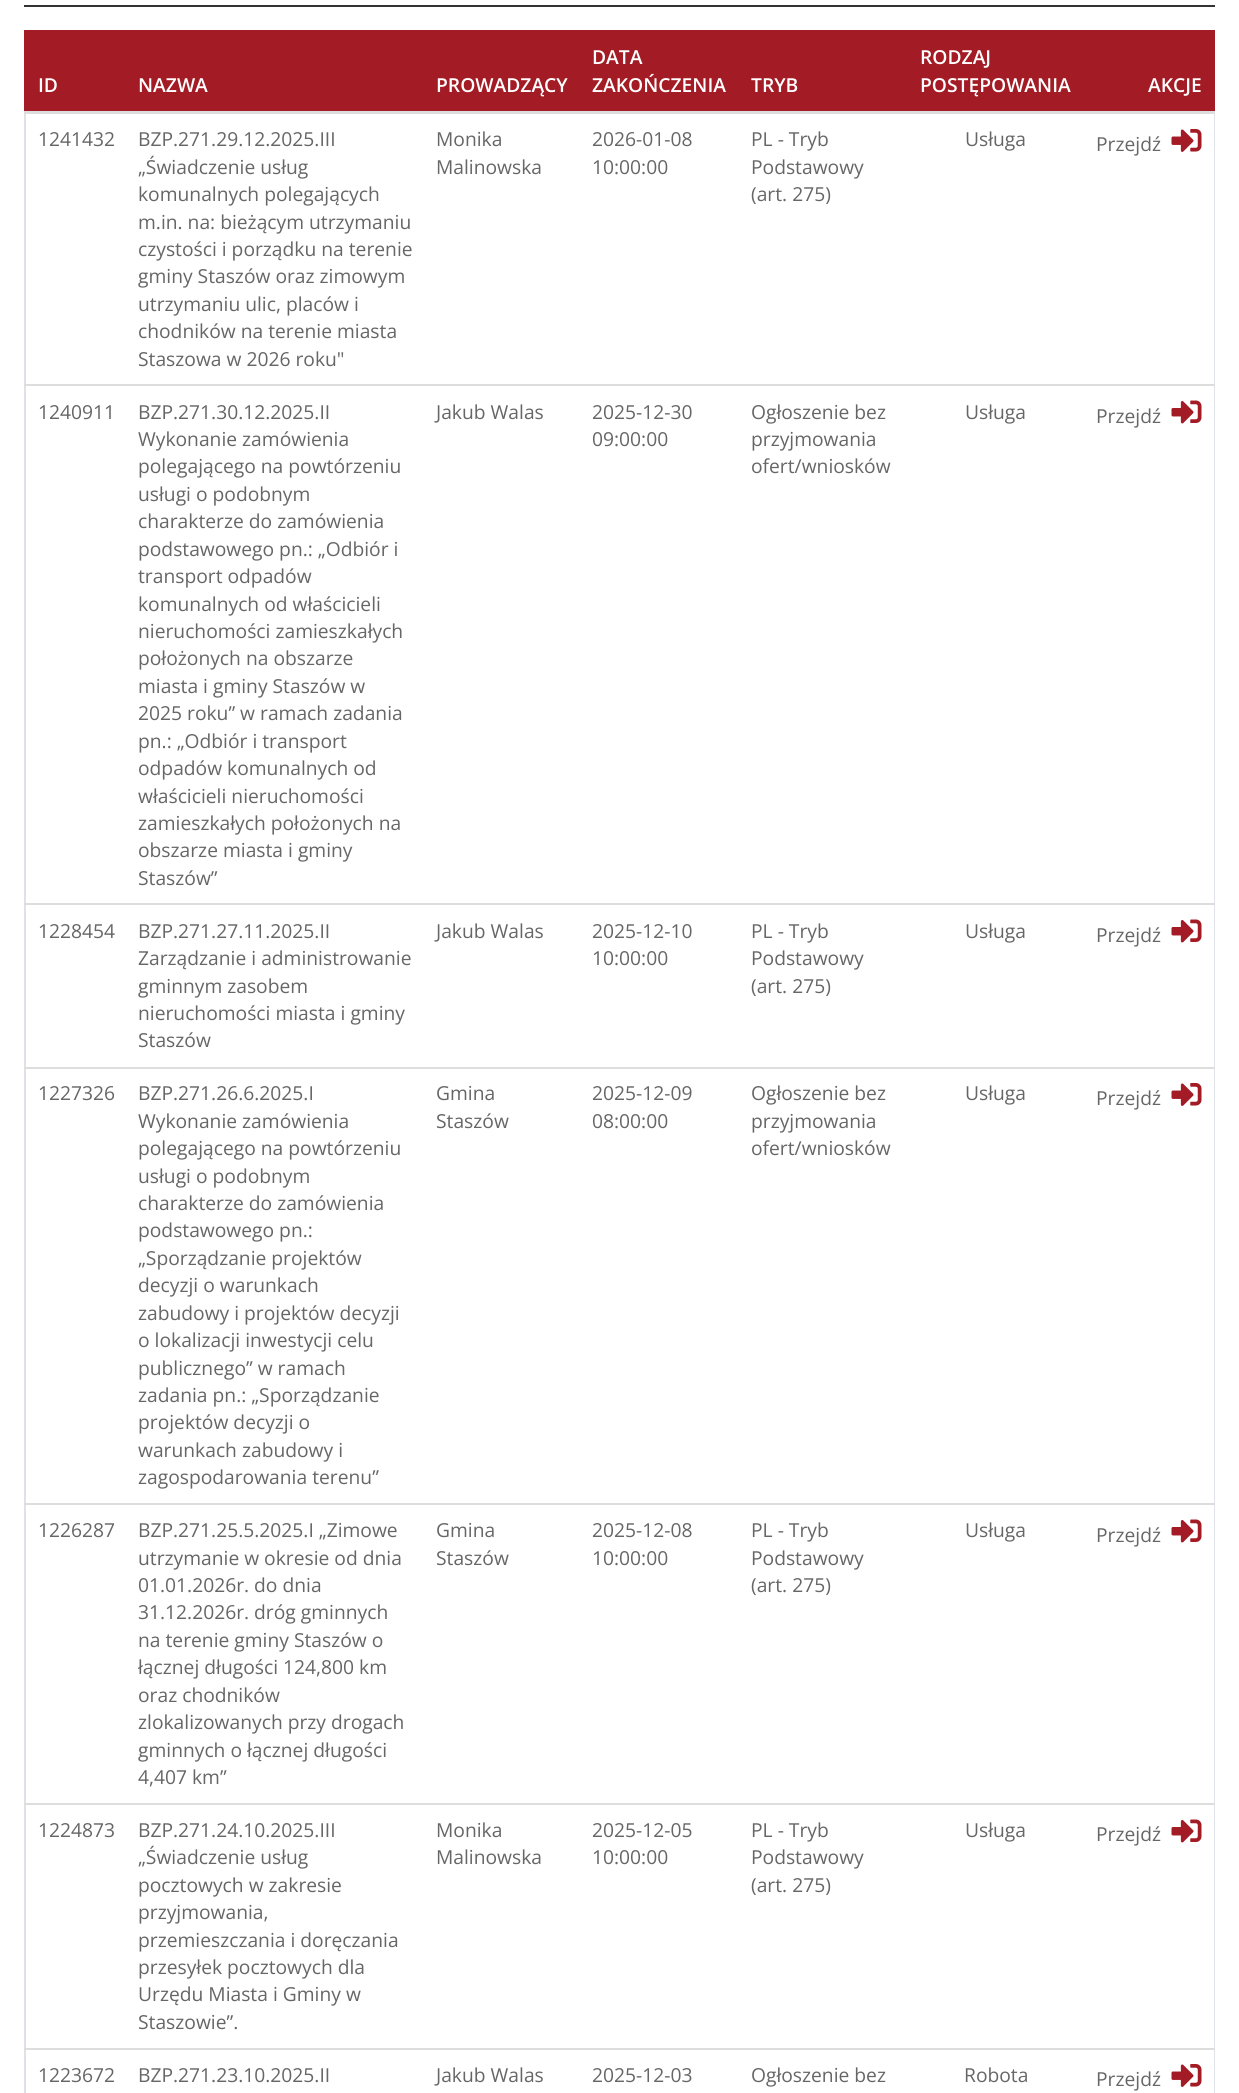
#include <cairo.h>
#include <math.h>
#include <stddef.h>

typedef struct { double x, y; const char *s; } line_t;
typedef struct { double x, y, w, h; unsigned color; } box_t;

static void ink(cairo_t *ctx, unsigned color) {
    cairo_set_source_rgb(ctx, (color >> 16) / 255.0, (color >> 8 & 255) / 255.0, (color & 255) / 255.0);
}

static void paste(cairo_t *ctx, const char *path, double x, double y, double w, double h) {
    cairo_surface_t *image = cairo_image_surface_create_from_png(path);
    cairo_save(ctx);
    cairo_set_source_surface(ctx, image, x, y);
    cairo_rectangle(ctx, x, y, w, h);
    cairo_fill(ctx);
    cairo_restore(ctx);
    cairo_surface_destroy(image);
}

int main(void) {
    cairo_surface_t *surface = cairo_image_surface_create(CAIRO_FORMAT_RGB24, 1239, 2093);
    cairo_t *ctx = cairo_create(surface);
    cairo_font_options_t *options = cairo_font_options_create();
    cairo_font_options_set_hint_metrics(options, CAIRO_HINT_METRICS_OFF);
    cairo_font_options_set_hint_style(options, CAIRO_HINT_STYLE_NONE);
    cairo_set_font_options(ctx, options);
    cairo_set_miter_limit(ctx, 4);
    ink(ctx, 0xFFFFFF);
    cairo_paint(ctx);
    {
        static const box_t items[] = {
            {24, 5, 1191, 2, 0x333333},
            {26, 32, 1188, 79, 0xA31B24},
            {24, 30, 1191, 2, 0xA31B24},
            {1214, 111, 1, 1982, 0xDEE2E6},
            {1214, 30, 1, 83, 0xA31B24},
            {24, 111, 2, 1982, 0xDEE2E6},
            {24, 30, 2, 83, 0xA31B24},
        };
        for (size_t i = 0; i < sizeof items / sizeof *items; i++) {
            ink(ctx, items[i].color);
            cairo_rectangle(ctx, items[i].x, items[i].y, items[i].w, items[i].h);
            cairo_fill(ctx);
        }
    }
    cairo_select_font_face(ctx, "Open Sans SemiBold", CAIRO_FONT_SLANT_NORMAL, CAIRO_FONT_WEIGHT_NORMAL);
    cairo_set_font_size(ctx, 19.25);
    ink(ctx, 0xFFFFFF);
    {
        static const line_t items[] = {
            {38, 92, "ID"},
            {138, 92, "NAZWA"},
            {436, 92, "PROWADZĄCY"},
            {592, 64, "DATA"},
            {592, 92, "ZAKOŃCZENIA"},
            {751, 92, "TRYB"},
            {920, 64, "RODZAJ"},
            {920, 92, "POSTĘPOWANIA"},
        };
        for (size_t i = 0; i < sizeof items / sizeof *items; i++) {
            cairo_move_to(ctx, items[i].x, items[i].y);
            cairo_show_text(ctx, items[i].s);
        }
    }
    ink(ctx, 0xDDDDDD);
    cairo_rectangle(ctx, 24, 111, 1191, 3);
    cairo_fill(ctx);
    ink(ctx, 0xFFFFFF);
    cairo_move_to(ctx, 1148, 92);
    cairo_show_text(ctx, "AKCJE");
    cairo_select_font_face(ctx, "Open Sans", CAIRO_FONT_SLANT_NORMAL, CAIRO_FONT_WEIGHT_NORMAL);
    ink(ctx, 0x666666);
    {
        static const line_t items[] = {
            {38, 146, "1241432"},
            {138, 146, "BZP.271.29.12.2025.III"},
            {138, 174, "„Świadczenie usług"},
            {138, 201, "komunalnych polegających"},
            {138, 229, "m.in. na: bieżącym utrzymaniu"},
            {138, 256, "czystości i porządku na terenie"},
            {138, 283, "gminy Staszów oraz zimowym"},
            {138, 311, "utrzymaniu ulic, placów i"},
            {138, 338, "chodników na terenie miasta"},
            {138, 366, "Staszowa w 2026 roku\""},
            {436, 146, "Monika"},
            {436, 174, "Malinowska"},
            {592, 146, "2026-01-08"},
            {592, 174, "10:00:00"},
            {751, 146, "PL - Tryb"},
            {751, 174, "Podstawowy"},
            {751, 201, "(art. 275)"},
            {965, 146, "Usługa"},
            {1096, 151, "Przejdź"},
        };
        for (size_t i = 0; i < sizeof items / sizeof *items; i++) {
            cairo_move_to(ctx, items[i].x, items[i].y);
            cairo_show_text(ctx, items[i].s);
        }
    }
    paste(ctx, "media/1.png", 1171, 129, 31, 23);
    {
        static const line_t items[] = {
            {38, 419, "1240911"},
            {138, 419, "BZP.271.30.12.2025.II"},
            {138, 446, "Wykonanie zamówienia"},
            {138, 473, "polegającego na powtórzeniu"},
            {138, 501, "usługi o podobnym"},
            {138, 528, "charakterze do zamówienia"},
            {138, 556, "podstawowego pn.: „Odbiór i"},
            {138, 583, "transport odpadów"},
            {138, 611, "komunalnych od właścicieli"},
            {138, 638, "nieruchomości zamieszkałych"},
            {138, 665, "położonych na obszarze"},
            {138, 693, "miasta i gminy Staszów w"},
            {138, 720, "2025 roku” w ramach zadania"},
            {138, 748, "pn.: „Odbiór i transport"},
            {138, 775, "odpadów komunalnych od"},
            {138, 803, "właścicieli nieruchomości"},
            {138, 830, "zamieszkałych położonych na"},
            {138, 857, "obszarze miasta i gminy"},
            {138, 885, "Staszów”"},
            {436, 419, "Jakub Walas"},
            {592, 419, "2025-12-30"},
            {592, 446, "09:00:00"},
            {751, 419, "Ogłoszenie bez"},
            {751, 446, "przyjmowania"},
            {751, 473, "ofert/wniosków"},
            {965, 419, "Usługa"},
        };
        for (size_t i = 0; i < sizeof items / sizeof *items; i++) {
            cairo_move_to(ctx, items[i].x, items[i].y);
            cairo_show_text(ctx, items[i].s);
        }
    }
    ink(ctx, 0xDDDDDD);
    cairo_rectangle(ctx, 24, 384, 1191, 2);
    cairo_fill(ctx);
    ink(ctx, 0x666666);
    cairo_move_to(ctx, 1096, 423);
    cairo_show_text(ctx, "Przejdź");
    paste(ctx, "media/2.png", 1171, 400, 31, 24);
    {
        static const line_t items[] = {
            {38, 938, "1228454"},
            {138, 938, "BZP.271.27.11.2025.II"},
            {138, 965, "Zarządzanie i administrowanie"},
            {138, 993, "gminnym zasobem"},
            {138, 1020, "nieruchomości miasta i gminy"},
            {138, 1047, "Staszów"},
            {436, 938, "Jakub Walas"},
            {592, 938, "2025-12-10"},
            {592, 965, "10:00:00"},
            {751, 938, "PL - Tryb"},
            {751, 965, "Podstawowy"},
            {751, 993, "(art. 275)"},
            {965, 938, "Usługa"},
        };
        for (size_t i = 0; i < sizeof items / sizeof *items; i++) {
            cairo_move_to(ctx, items[i].x, items[i].y);
            cairo_show_text(ctx, items[i].s);
        }
    }
    ink(ctx, 0xDDDDDD);
    cairo_rectangle(ctx, 24, 903, 1191, 2);
    cairo_fill(ctx);
    ink(ctx, 0x666666);
    cairo_move_to(ctx, 1096, 942);
    cairo_show_text(ctx, "Przejdź");
    paste(ctx, "media/2.png", 1171, 919, 31, 24);
    {
        static const line_t items[] = {
            {38, 1100, "1227326"},
            {138, 1100, "BZP.271.26.6.2025.I"},
            {138, 1128, "Wykonanie zamówienia"},
            {138, 1155, "polegającego na powtórzeniu"},
            {138, 1183, "usługi o podobnym"},
            {138, 1210, "charakterze do zamówienia"},
            {138, 1237, "podstawowego pn.:"},
            {138, 1265, "„Sporządzanie projektów"},
            {138, 1292, "decyzji o warunkach"},
            {138, 1320, "zabudowy i projektów decyzji"},
            {138, 1347, "o lokalizacji inwestycji celu"},
            {138, 1375, "publicznego” w ramach"},
            {138, 1402, "zadania pn.: „Sporządzanie"},
            {138, 1429, "projektów decyzji o"},
            {138, 1457, "warunkach zabudowy i"},
            {138, 1484, "zagospodarowania terenu”"},
            {436, 1100, "Gmina"},
            {436, 1128, "Staszów"},
            {592, 1100, "2025-12-09"},
            {592, 1128, "08:00:00"},
            {751, 1100, "Ogłoszenie bez"},
            {751, 1128, "przyjmowania"},
            {751, 1155, "ofert/wniosków"},
            {965, 1100, "Usługa"},
        };
        for (size_t i = 0; i < sizeof items / sizeof *items; i++) {
            cairo_move_to(ctx, items[i].x, items[i].y);
            cairo_show_text(ctx, items[i].s);
        }
    }
    ink(ctx, 0xDDDDDD);
    cairo_rectangle(ctx, 24, 1067, 1191, 2);
    cairo_fill(ctx);
    ink(ctx, 0x666666);
    cairo_move_to(ctx, 1096, 1105);
    cairo_show_text(ctx, "Przejdź");
    paste(ctx, "media/1.png", 1171, 1083, 31, 23);
    {
        static const line_t items[] = {
            {38, 1537, "1226287"},
            {138, 1537, "BZP.271.25.5.2025.I „Zimowe"},
            {138, 1565, "utrzymanie w okresie od dnia"},
            {138, 1592, "01.01.2026r. do dnia"},
            {138, 1619, "31.12.2026r. dróg gminnych"},
            {138, 1647, "na terenie gminy Staszów o"},
            {138, 1674, "łącznej długości 124,800 km"},
            {138, 1702, "oraz chodników"},
            {138, 1729, "zlokalizowanych przy drogach"},
            {138, 1757, "gminnych o łącznej długości"},
            {138, 1784, "4,407 km”"},
            {436, 1537, "Gmina"},
            {436, 1565, "Staszów"},
            {592, 1537, "2025-12-08"},
            {592, 1565, "10:00:00"},
            {751, 1537, "PL - Tryb"},
            {751, 1565, "Podstawowy"},
            {751, 1592, "(art. 275)"},
            {965, 1537, "Usługa"},
        };
        for (size_t i = 0; i < sizeof items / sizeof *items; i++) {
            cairo_move_to(ctx, items[i].x, items[i].y);
            cairo_show_text(ctx, items[i].s);
        }
    }
    ink(ctx, 0xDDDDDD);
    cairo_rectangle(ctx, 24, 1503, 1191, 2);
    cairo_fill(ctx);
    ink(ctx, 0x666666);
    cairo_move_to(ctx, 1096, 1542);
    cairo_show_text(ctx, "Przejdź");
    paste(ctx, "media/2.png", 1171, 1519, 31, 24);
    {
        static const line_t items[] = {
            {38, 1837, "1224873"},
            {138, 1837, "BZP.271.24.10.2025.III"},
            {138, 1864, "„Świadczenie usług"},
            {138, 1892, "pocztowych w zakresie"},
            {138, 1919, "przyjmowania,"},
            {138, 1947, "przemieszczania i doręczania"},
            {138, 1974, "przesyłek pocztowych dla"},
            {138, 2001, "Urzędu Miasta i Gminy w"},
            {138, 2029, "Staszowie”."},
            {436, 1837, "Monika"},
            {436, 1864, "Malinowska"},
            {592, 1837, "2025-12-05"},
            {592, 1864, "10:00:00"},
            {751, 1837, "PL - Tryb"},
            {751, 1864, "Podstawowy"},
            {751, 1892, "(art. 275)"},
            {965, 1837, "Usługa"},
        };
        for (size_t i = 0; i < sizeof items / sizeof *items; i++) {
            cairo_move_to(ctx, items[i].x, items[i].y);
            cairo_show_text(ctx, items[i].s);
        }
    }
    ink(ctx, 0xDDDDDD);
    cairo_rectangle(ctx, 24, 1803, 1191, 2);
    cairo_fill(ctx);
    ink(ctx, 0x666666);
    cairo_move_to(ctx, 1096, 1841);
    cairo_show_text(ctx, "Przejdź");
    paste(ctx, "media/2.png", 1171, 1819, 31, 24);
    {
        static const line_t items[] = {
            {38, 2082, "1223672"},
            {138, 2082, "BZP.271.23.10.2025.II"},
            {436, 2082, "Jakub Walas"},
            {592, 2082, "2025-12-03"},
            {751, 2082, "Ogłoszenie bez"},
            {964, 2082, "Robota"},
        };
        for (size_t i = 0; i < sizeof items / sizeof *items; i++) {
            cairo_move_to(ctx, items[i].x, items[i].y);
            cairo_show_text(ctx, items[i].s);
        }
    }
    ink(ctx, 0xDDDDDD);
    cairo_rectangle(ctx, 24, 2048, 1191, 2);
    cairo_fill(ctx);
    ink(ctx, 0x666666);
    cairo_move_to(ctx, 1096, 2086);
    cairo_show_text(ctx, "Przejdź");
    paste(ctx, "media/1.png", 1171, 2064, 31, 23);
    cairo_surface_write_to_png(surface, "image.png");
    cairo_font_options_destroy(options);
    cairo_destroy(ctx);
    cairo_surface_destroy(surface);
    return 0;
}
